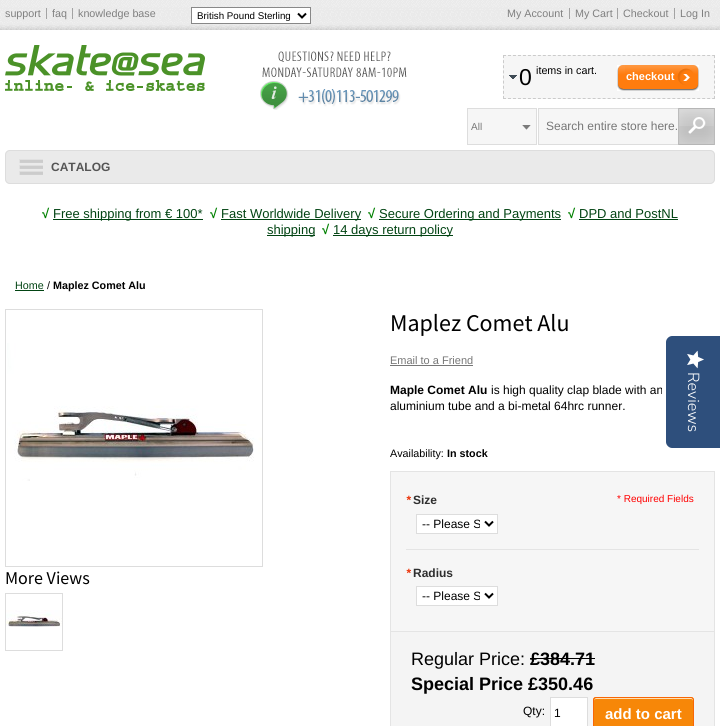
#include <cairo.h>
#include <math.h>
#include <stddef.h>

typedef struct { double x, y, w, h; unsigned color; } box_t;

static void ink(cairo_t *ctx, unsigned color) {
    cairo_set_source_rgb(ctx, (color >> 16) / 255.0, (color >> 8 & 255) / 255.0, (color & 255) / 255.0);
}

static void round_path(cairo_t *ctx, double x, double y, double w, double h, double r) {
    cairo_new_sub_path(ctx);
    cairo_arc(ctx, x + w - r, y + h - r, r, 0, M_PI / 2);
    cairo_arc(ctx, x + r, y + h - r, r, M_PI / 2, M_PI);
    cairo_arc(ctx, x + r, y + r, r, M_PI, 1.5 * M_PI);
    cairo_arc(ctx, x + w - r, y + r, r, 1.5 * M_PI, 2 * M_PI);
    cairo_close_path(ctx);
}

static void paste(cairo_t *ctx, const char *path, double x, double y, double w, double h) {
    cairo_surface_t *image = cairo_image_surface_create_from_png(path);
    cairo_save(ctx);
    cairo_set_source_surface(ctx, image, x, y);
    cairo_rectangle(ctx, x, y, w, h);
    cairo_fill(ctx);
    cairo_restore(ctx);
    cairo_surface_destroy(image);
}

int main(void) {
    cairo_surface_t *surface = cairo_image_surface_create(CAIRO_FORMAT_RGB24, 720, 726);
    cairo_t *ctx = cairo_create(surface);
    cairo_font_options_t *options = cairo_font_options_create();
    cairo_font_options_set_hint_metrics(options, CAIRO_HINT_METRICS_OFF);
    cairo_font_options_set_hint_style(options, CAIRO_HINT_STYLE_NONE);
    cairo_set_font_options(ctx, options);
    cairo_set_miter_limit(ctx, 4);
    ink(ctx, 0xFFFFFF);
    cairo_paint(ctx);
    paste(ctx, "media/1.png", 0, 0, 720, 30);
    cairo_select_font_face(ctx, "Liberation Sans", CAIRO_FONT_SLANT_NORMAL, CAIRO_FONT_WEIGHT_NORMAL);
    cairo_set_font_size(ctx, 10.75);
    ink(ctx, 0x7F7F7F);
    cairo_move_to(ctx, 5, 17);
    cairo_show_text(ctx, "support");
    cairo_move_to(ctx, 52, 17);
    cairo_show_text(ctx, "faq");
    ink(ctx, 0xA3A3A3);
    cairo_rectangle(ctx, 46, 8, 1, 11);
    cairo_fill(ctx);
    ink(ctx, 0x7F7F7F);
    cairo_move_to(ctx, 78, 17);
    cairo_show_text(ctx, "knowledge base");
    ink(ctx, 0xA3A3A3);
    cairo_rectangle(ctx, 72, 8, 1, 11);
    cairo_fill(ctx);
    ink(ctx, 0xFFFFFF);
    cairo_rectangle(ctx, 191.5, 7.5, 119, 16);
    cairo_fill_preserve(ctx);
    ink(ctx, 0x888888);
    cairo_set_line_width(ctx, 1);
    cairo_stroke(ctx);
    cairo_new_path(ctx);
    cairo_move_to(ctx, 298, 13.5);
    cairo_line_to(ctx, 302, 17.5);
    cairo_line_to(ctx, 306, 13.5);
    ink(ctx, 0x000000);
    cairo_set_line_width(ctx, 2);
    cairo_stroke(ctx);
    cairo_set_font_size(ctx, 9.75);
    cairo_move_to(ctx, 197, 19);
    cairo_show_text(ctx, "British Pound Sterling");
    cairo_set_font_size(ctx, 10.75);
    ink(ctx, 0x7F7F7F);
    cairo_move_to(ctx, 507, 17);
    cairo_show_text(ctx, "My Account");
    cairo_move_to(ctx, 575, 17);
    cairo_show_text(ctx, "My Cart");
    ink(ctx, 0xA3A3A3);
    cairo_rectangle(ctx, 569, 8, 1, 11);
    cairo_fill(ctx);
    ink(ctx, 0x7F7F7F);
    cairo_move_to(ctx, 623, 17);
    cairo_show_text(ctx, "Checkout");
    ink(ctx, 0xA3A3A3);
    cairo_rectangle(ctx, 617, 8, 1, 11);
    cairo_fill(ctx);
    ink(ctx, 0x7F7F7F);
    cairo_move_to(ctx, 680, 17);
    cairo_show_text(ctx, "Log In");
    ink(ctx, 0xA3A3A3);
    cairo_rectangle(ctx, 674, 8, 1, 11);
    cairo_fill(ctx);
    paste(ctx, "media/2.png", 5, 45, 200, 46);
    paste(ctx, "media/3.png", 260, 51, 147, 59);
    ink(ctx, 0xF6F6F6);
    cairo_rectangle(ctx, 503, 55, 212, 44);
    cairo_fill(ctx);
    cairo_new_path(ctx);
    cairo_move_to(ctx, 503, 55.5);
    cairo_line_to(ctx, 715, 55.5);
    ink(ctx, 0xCBCBCB);
    cairo_set_line_width(ctx, 1);
    cairo_set_dash(ctx, (double[]){3, 1.98}, 2, 0);
    cairo_stroke(ctx);
    cairo_new_path(ctx);
    cairo_move_to(ctx, 714.5, 55);
    cairo_line_to(ctx, 714.5, 99);
    cairo_set_dash(ctx, (double[]){3, 2.12}, 2, 0);
    cairo_stroke(ctx);
    cairo_new_path(ctx);
    cairo_move_to(ctx, 503, 98.5);
    cairo_line_to(ctx, 715, 98.5);
    cairo_set_dash(ctx, (double[]){3, 1.98}, 2, 0);
    cairo_stroke(ctx);
    cairo_new_path(ctx);
    cairo_move_to(ctx, 503.5, 55);
    cairo_line_to(ctx, 503.5, 99);
    cairo_set_dash(ctx, (double[]){3, 2.12}, 2, 0);
    cairo_stroke(ctx);
    paste(ctx, "media/4.png", 509, 75, 8, 4);
    cairo_set_font_size(ctx, 23);
    ink(ctx, 0x000000);
    cairo_move_to(ctx, 519, 85);
    cairo_show_text(ctx, "0");
    cairo_set_font_size(ctx, 10.75);
    cairo_move_to(ctx, 536, 74);
    cairo_show_text(ctx, "items in cart.");
    paste(ctx, "media/5.png", 617, 65, 8, 26);
    paste(ctx, "media/6.png", 625, 65, 74, 26);
    cairo_select_font_face(ctx, "Liberation Sans", CAIRO_FONT_SLANT_NORMAL, CAIRO_FONT_WEIGHT_BOLD);
    cairo_set_font_size(ctx, 11);
    ink(ctx, 0xFFFFFF);
    cairo_move_to(ctx, 626, 80);
    cairo_show_text(ctx, "checkout");
    ink(ctx, 0xF6F6F6);
    cairo_rectangle(ctx, 467.5, 108.5, 69, 36);
    cairo_fill_preserve(ctx);
    ink(ctx, 0xDDDDDD);
    cairo_set_dash(ctx, NULL, 0, 0);
    cairo_stroke(ctx);
    cairo_select_font_face(ctx, "Liberation Sans", CAIRO_FONT_SLANT_NORMAL, CAIRO_FONT_WEIGHT_NORMAL);
    cairo_set_font_size(ctx, 10);
    ink(ctx, 0x777777);
    cairo_move_to(ctx, 471, 130);
    cairo_show_text(ctx, "All");
    paste(ctx, "media/7.png", 522, 125, 9, 5);
    ink(ctx, 0xF6F6F6);
    cairo_rectangle(ctx, 539, 109, 139, 35);
    cairo_fill(ctx);
    cairo_rectangle(ctx, 538.5, 108.5, 141, 36);
    ink(ctx, 0xDDDDDD);
    cairo_stroke(ctx);
    cairo_set_font_size(ctx, 12);
    ink(ctx, 0x777777);
    cairo_move_to(ctx, 546, 130);
    cairo_show_text(ctx, "Search entire store here.");
    paste(ctx, "media/8.png", 678, 108, 37, 37);
    ink(ctx, 0xEAEAEA);
    round_path(ctx, 5, 150, 710, 34, 5);
    cairo_fill(ctx);
    paste(ctx, "media/9.png", 19, 159, 24, 16);
    round_path(ctx, 5.5, 150.5, 709, 33, 4.5);
    ink(ctx, 0xDDDDDD);
    cairo_stroke(ctx);
    cairo_select_font_face(ctx, "Liberation Sans", CAIRO_FONT_SLANT_NORMAL, CAIRO_FONT_WEIGHT_BOLD);
    ink(ctx, 0x555555);
    cairo_move_to(ctx, 51, 171);
    cairo_show_text(ctx, "CATALOG");
    cairo_set_font_size(ctx, 13);
    ink(ctx, 0x008000);
    cairo_move_to(ctx, 42, 218);
    cairo_show_text(ctx, "√");
    ink(ctx, 0x024413);
    cairo_rectangle(ctx, 53, 219, 150, 1);
    cairo_fill(ctx);
    cairo_select_font_face(ctx, "Liberation Sans", CAIRO_FONT_SLANT_NORMAL, CAIRO_FONT_WEIGHT_NORMAL);
    cairo_move_to(ctx, 53, 218);
    cairo_show_text(ctx, "Free shipping from € 100*");
    cairo_select_font_face(ctx, "Liberation Sans", CAIRO_FONT_SLANT_NORMAL, CAIRO_FONT_WEIGHT_BOLD);
    ink(ctx, 0x008000);
    cairo_move_to(ctx, 210, 218);
    cairo_show_text(ctx, "√");
    ink(ctx, 0x024413);
    cairo_rectangle(ctx, 221, 219, 140, 1);
    cairo_fill(ctx);
    cairo_select_font_face(ctx, "Liberation Sans", CAIRO_FONT_SLANT_NORMAL, CAIRO_FONT_WEIGHT_NORMAL);
    cairo_move_to(ctx, 221, 218);
    cairo_show_text(ctx, "Fast Worldwide Delivery");
    cairo_select_font_face(ctx, "Liberation Sans", CAIRO_FONT_SLANT_NORMAL, CAIRO_FONT_WEIGHT_BOLD);
    ink(ctx, 0x008000);
    cairo_move_to(ctx, 368, 218);
    cairo_show_text(ctx, "√");
    ink(ctx, 0x024413);
    cairo_rectangle(ctx, 379, 219, 182, 1);
    cairo_fill(ctx);
    cairo_select_font_face(ctx, "Liberation Sans", CAIRO_FONT_SLANT_NORMAL, CAIRO_FONT_WEIGHT_NORMAL);
    cairo_move_to(ctx, 379, 218);
    cairo_show_text(ctx, "Secure Ordering and Payments");
    cairo_select_font_face(ctx, "Liberation Sans", CAIRO_FONT_SLANT_NORMAL, CAIRO_FONT_WEIGHT_BOLD);
    ink(ctx, 0x008000);
    cairo_move_to(ctx, 568, 218);
    cairo_show_text(ctx, "√");
    cairo_select_font_face(ctx, "Liberation Sans", CAIRO_FONT_SLANT_NORMAL, CAIRO_FONT_WEIGHT_NORMAL);
    ink(ctx, 0x024413);
    cairo_move_to(ctx, 579, 218);
    cairo_show_text(ctx, "DPD and PostNL");
    cairo_rectangle(ctx, 579, 219, 99, 1);
    cairo_fill(ctx);
    cairo_rectangle(ctx, 267, 235, 48, 1);
    cairo_fill(ctx);
    cairo_move_to(ctx, 267, 234);
    cairo_show_text(ctx, "shipping");
    cairo_select_font_face(ctx, "Liberation Sans", CAIRO_FONT_SLANT_NORMAL, CAIRO_FONT_WEIGHT_BOLD);
    ink(ctx, 0x008000);
    cairo_move_to(ctx, 322, 234);
    cairo_show_text(ctx, "√");
    ink(ctx, 0x024413);
    cairo_rectangle(ctx, 333, 235, 120, 1);
    cairo_fill(ctx);
    cairo_select_font_face(ctx, "Liberation Sans", CAIRO_FONT_SLANT_NORMAL, CAIRO_FONT_WEIGHT_NORMAL);
    cairo_move_to(ctx, 333, 234);
    cairo_show_text(ctx, "14 days return policy");
    cairo_set_font_size(ctx, 10.75);
    cairo_move_to(ctx, 15, 289);
    cairo_show_text(ctx, "Home");
    cairo_rectangle(ctx, 15, 290, 29, 1);
    cairo_fill(ctx);
    ink(ctx, 0x000000);
    cairo_move_to(ctx, 47, 289);
    cairo_show_text(ctx, "/");
    cairo_select_font_face(ctx, "Liberation Sans", CAIRO_FONT_SLANT_NORMAL, CAIRO_FONT_WEIGHT_BOLD);
    cairo_move_to(ctx, 53, 289);
    cairo_show_text(ctx, "Maplez Comet Alu");
    cairo_rectangle(ctx, 5.5, 309.5, 257, 257);
    ink(ctx, 0xDDDDDD);
    cairo_stroke(ctx);
    paste(ctx, "media/10.png", 7, 343, 255, 138);
    cairo_select_font_face(ctx, "Source Sans Pro", CAIRO_FONT_SLANT_NORMAL, CAIRO_FONT_WEIGHT_NORMAL);
    cairo_set_font_size(ctx, 18);
    ink(ctx, 0x000000);
    cairo_move_to(ctx, 5, 584);
    cairo_show_text(ctx, "More Views");
    cairo_rectangle(ctx, 5.5, 593.5, 57, 57);
    ink(ctx, 0xDDDDDD);
    cairo_stroke(ctx);
    paste(ctx, "media/11.png", 6, 610, 56, 17);
    cairo_set_font_size(ctx, 24);
    ink(ctx, 0x000000);
    cairo_move_to(ctx, 390, 331);
    cairo_show_text(ctx, "Maplez Comet Alu");
    cairo_select_font_face(ctx, "Liberation Sans", CAIRO_FONT_SLANT_NORMAL, CAIRO_FONT_WEIGHT_NORMAL);
    cairo_set_font_size(ctx, 11);
    ink(ctx, 0x777777);
    cairo_move_to(ctx, 390, 364);
    cairo_show_text(ctx, "Email to a Friend");
    cairo_rectangle(ctx, 390, 365, 83, 1);
    cairo_fill(ctx);
    cairo_select_font_face(ctx, "Liberation Sans", CAIRO_FONT_SLANT_NORMAL, CAIRO_FONT_WEIGHT_BOLD);
    cairo_set_font_size(ctx, 12);
    ink(ctx, 0x000000);
    cairo_move_to(ctx, 390, 394);
    cairo_show_text(ctx, "Maple Comet Alu");
    cairo_select_font_face(ctx, "Liberation Sans", CAIRO_FONT_SLANT_NORMAL, CAIRO_FONT_WEIGHT_NORMAL);
    cairo_move_to(ctx, 491, 394);
    cairo_show_text(ctx, "is high quality clap blade with an");
    cairo_move_to(ctx, 390, 410);
    cairo_show_text(ctx, "aluminium tube and a bi-metal 64hrc runner.");
    cairo_set_font_size(ctx, 10.75);
    cairo_move_to(ctx, 390, 457);
    cairo_show_text(ctx, "Availability:");
    cairo_select_font_face(ctx, "Liberation Sans", CAIRO_FONT_SLANT_NORMAL, CAIRO_FONT_WEIGHT_BOLD);
    cairo_move_to(ctx, 447, 457);
    cairo_show_text(ctx, "In stock");
    ink(ctx, 0xF6F6F6);
    cairo_rectangle(ctx, 390.5, 471.5, 324, 160);
    cairo_fill_preserve(ctx);
    ink(ctx, 0xE4E4E4);
    cairo_stroke(ctx);
    cairo_select_font_face(ctx, "Liberation Sans", CAIRO_FONT_SLANT_ITALIC, CAIRO_FONT_WEIGHT_BOLD);
    cairo_set_font_size(ctx, 12);
    ink(ctx, 0xEB340A);
    cairo_move_to(ctx, 406, 504);
    cairo_show_text(ctx, "*");
    cairo_select_font_face(ctx, "Liberation Sans", CAIRO_FONT_SLANT_NORMAL, CAIRO_FONT_WEIGHT_BOLD);
    ink(ctx, 0x2F2F2F);
    cairo_move_to(ctx, 413, 504);
    cairo_show_text(ctx, "Size");
    ink(ctx, 0xE4E4E4);
    cairo_rectangle(ctx, 406, 549, 293, 1);
    cairo_fill(ctx);
    ink(ctx, 0xFFFFFF);
    cairo_rectangle(ctx, 416.5, 514.5, 81, 19);
    cairo_fill_preserve(ctx);
    ink(ctx, 0xDDDDDD);
    cairo_stroke(ctx);
    cairo_new_path(ctx);
    cairo_move_to(ctx, 485, 521.5);
    cairo_line_to(ctx, 489, 525.5);
    cairo_line_to(ctx, 493, 521.5);
    ink(ctx, 0x000000);
    cairo_set_line_width(ctx, 2);
    cairo_stroke(ctx);
    cairo_save(ctx);
    cairo_rectangle(ctx, 422, 516, 58, 16);
    cairo_clip(ctx);
    cairo_select_font_face(ctx, "Liberation Sans", CAIRO_FONT_SLANT_NORMAL, CAIRO_FONT_WEIGHT_NORMAL);
    cairo_move_to(ctx, 422, 528);
    cairo_show_text(ctx, "-- Please S");
    cairo_restore(ctx);
    cairo_select_font_face(ctx, "Liberation Sans", CAIRO_FONT_SLANT_ITALIC, CAIRO_FONT_WEIGHT_BOLD);
    ink(ctx, 0xEB340A);
    cairo_move_to(ctx, 406, 577);
    cairo_show_text(ctx, "*");
    cairo_select_font_face(ctx, "Liberation Sans", CAIRO_FONT_SLANT_NORMAL, CAIRO_FONT_WEIGHT_BOLD);
    ink(ctx, 0x2F2F2F);
    cairo_move_to(ctx, 413, 577);
    cairo_show_text(ctx, "Radius");
    ink(ctx, 0xFFFFFF);
    cairo_rectangle(ctx, 416.5, 586.5, 81, 19);
    cairo_fill_preserve(ctx);
    ink(ctx, 0xDDDDDD);
    cairo_set_line_width(ctx, 1);
    cairo_stroke(ctx);
    cairo_new_path(ctx);
    cairo_move_to(ctx, 485, 593.5);
    cairo_line_to(ctx, 489, 597.5);
    cairo_line_to(ctx, 493, 593.5);
    ink(ctx, 0x000000);
    cairo_set_line_width(ctx, 2);
    cairo_stroke(ctx);
    cairo_save(ctx);
    cairo_rectangle(ctx, 422, 588, 58, 16);
    cairo_clip(ctx);
    cairo_select_font_face(ctx, "Liberation Sans", CAIRO_FONT_SLANT_NORMAL, CAIRO_FONT_WEIGHT_NORMAL);
    cairo_move_to(ctx, 422, 600);
    cairo_show_text(ctx, "-- Please S");
    cairo_restore(ctx);
    cairo_select_font_face(ctx, "Liberation Sans", CAIRO_FONT_SLANT_NORMAL, CAIRO_FONT_WEIGHT_NORMAL);
    cairo_set_font_size(ctx, 10);
    ink(ctx, 0xFF0000);
    cairo_move_to(ctx, 617, 502);
    cairo_show_text(ctx, "* Required Fields");
    {
        static const box_t items[] = {
            {391, 632, 323, 94, 0xF4F4F4},
            {714, 632, 1, 94, 0xE4E4E4},
            {390, 632, 1, 94, 0xE4E4E4},
        };
        for (size_t i = 0; i < sizeof items / sizeof *items; i++) {
            ink(ctx, items[i].color);
            cairo_rectangle(ctx, items[i].x, items[i].y, items[i].w, items[i].h);
            cairo_fill(ctx);
        }
    }
    cairo_set_font_size(ctx, 18);
    ink(ctx, 0x000000);
    cairo_move_to(ctx, 411, 665);
    cairo_show_text(ctx, "Regular Price:");
    cairo_select_font_face(ctx, "Liberation Sans", CAIRO_FONT_SLANT_NORMAL, CAIRO_FONT_WEIGHT_BOLD);
    cairo_move_to(ctx, 530, 665);
    cairo_show_text(ctx, "£384.71");
    cairo_rectangle(ctx, 530, 658, 65, 1);
    cairo_fill(ctx);
    cairo_move_to(ctx, 411, 690);
    cairo_show_text(ctx, "Special Price £350.46");
    cairo_select_font_face(ctx, "Liberation Sans", CAIRO_FONT_SLANT_NORMAL, CAIRO_FONT_WEIGHT_NORMAL);
    cairo_set_font_size(ctx, 12);
    cairo_move_to(ctx, 523, 715);
    cairo_show_text(ctx, "Qty:");
    ink(ctx, 0xFFFFFF);
    cairo_rectangle(ctx, 550.5, 697.5, 37, 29);
    cairo_fill_preserve(ctx);
    ink(ctx, 0xDDDDDD);
    cairo_set_line_width(ctx, 1);
    cairo_stroke(ctx);
    ink(ctx, 0x000000);
    cairo_move_to(ctx, 554, 717);
    cairo_show_text(ctx, "1");
    ink(ctx, 0xF78708);
    round_path(ctx, 593, 697, 101, 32, 3);
    cairo_fill(ctx);
    ink(ctx, 0xFFE0B5);
    cairo_new_path(ctx);
    cairo_move_to(ctx, 596, 699);
    cairo_line_to(ctx, 691, 699);
    cairo_curve_to(ctx, 692, 699, 693, 700, 693, 701);
    cairo_curve_to(ctx, 693, 700, 693, 698, 691, 698);
    cairo_line_to(ctx, 612, 698);
    cairo_curve_to(ctx, 610, 698, 594, 694, 594, 701);
    cairo_curve_to(ctx, 594, 700, 595, 699, 596, 699);
    cairo_close_path(ctx);
    cairo_fill(ctx);
    round_path(ctx, 593.5, 697.5, 100, 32, 2.5);
    ink(ctx, 0xF86706);
    cairo_stroke(ctx);
    cairo_select_font_face(ctx, "Liberation Sans", CAIRO_FONT_SLANT_NORMAL, CAIRO_FONT_WEIGHT_BOLD);
    cairo_set_font_size(ctx, 15);
    ink(ctx, 0xFFFFFF);
    cairo_move_to(ctx, 605, 719);
    cairo_show_text(ctx, "add to cart");
    ink(ctx, 0x2E4F7C);
    cairo_new_path(ctx);
    cairo_move_to(ctx, 720, 336);
    cairo_line_to(ctx, 720, 448);
    cairo_line_to(ctx, 672, 448);
    cairo_curve_to(ctx, 669, 448, 666, 445, 666, 442);
    cairo_line_to(ctx, 666, 342);
    cairo_curve_to(ctx, 666, 339, 669, 336, 672, 336);
    cairo_close_path(ctx);
    cairo_fill(ctx);
    paste(ctx, "media/12.png", 687, 350, 17, 19);
    cairo_select_font_face(ctx, "Nunito Sans Light", CAIRO_FONT_SLANT_NORMAL, CAIRO_FONT_WEIGHT_NORMAL);
    cairo_set_font_size(ctx, 16);
    ink(ctx, 0xFFFFFF);
    cairo_save(ctx);
    cairo_translate(ctx, 688, 372);
    cairo_rotate(ctx, 90 * M_PI / 180);
    cairo_move_to(ctx, 0, 0);
    cairo_show_text(ctx, "Reviews");
    cairo_restore(ctx);
    cairo_surface_write_to_png(surface, "image.png");
    cairo_font_options_destroy(options);
    cairo_destroy(ctx);
    cairo_surface_destroy(surface);
    return 0;
}
